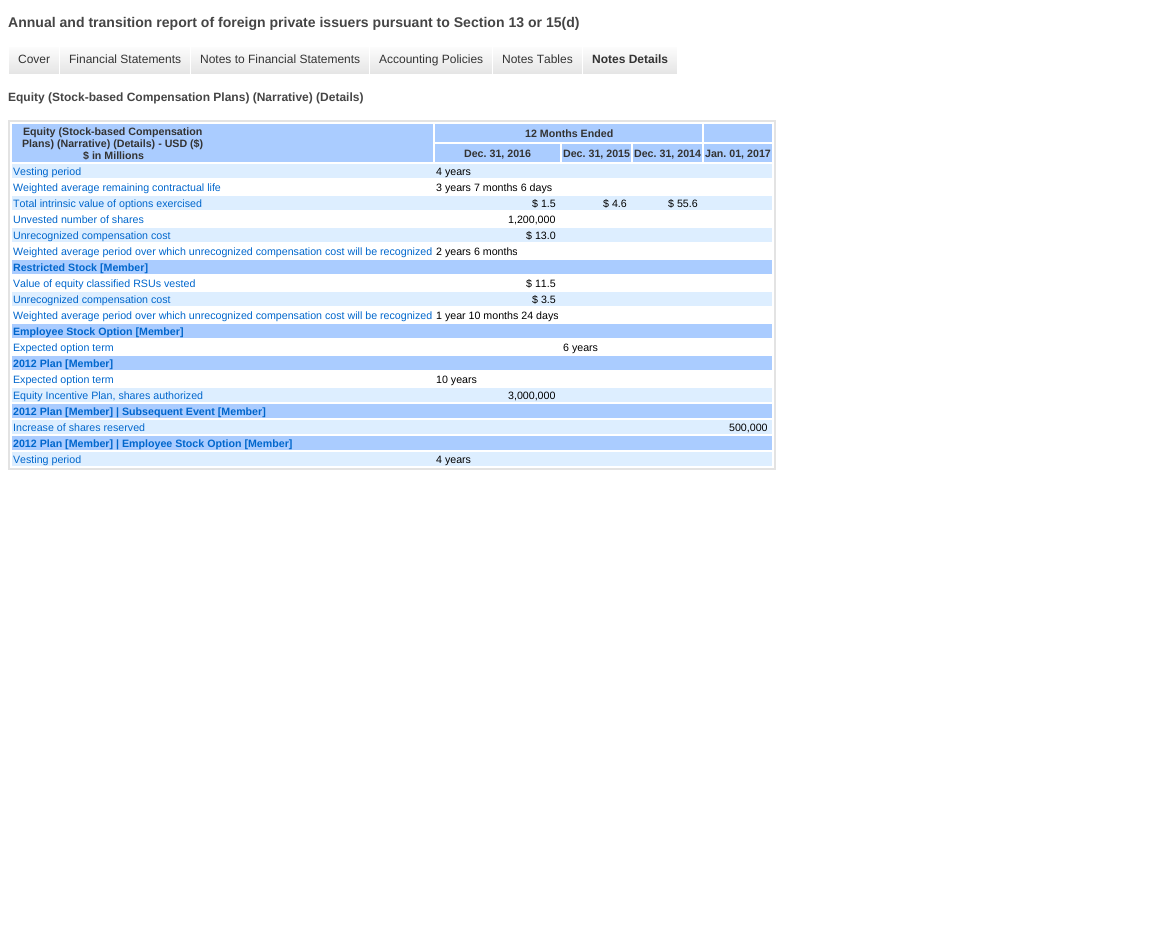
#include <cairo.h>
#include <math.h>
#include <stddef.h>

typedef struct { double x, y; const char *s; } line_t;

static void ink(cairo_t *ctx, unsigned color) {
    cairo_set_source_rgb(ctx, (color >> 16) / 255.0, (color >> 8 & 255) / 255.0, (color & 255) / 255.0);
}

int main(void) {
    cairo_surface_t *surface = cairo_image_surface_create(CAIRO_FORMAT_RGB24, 1153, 927);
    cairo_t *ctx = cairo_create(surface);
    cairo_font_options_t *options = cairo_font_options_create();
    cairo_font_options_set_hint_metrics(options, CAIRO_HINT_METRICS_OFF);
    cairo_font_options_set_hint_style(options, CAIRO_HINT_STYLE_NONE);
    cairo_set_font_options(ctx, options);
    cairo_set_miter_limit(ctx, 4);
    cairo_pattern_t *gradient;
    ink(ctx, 0xFFFFFF);
    cairo_paint(ctx);
    cairo_select_font_face(ctx, "Liberation Sans", CAIRO_FONT_SLANT_NORMAL, CAIRO_FONT_WEIGHT_BOLD);
    cairo_set_font_size(ctx, 14.05);
    ink(ctx, 0x454545);
    cairo_move_to(ctx, 8, 27);
    cairo_show_text(ctx, "Annual and transition report of foreign private issuers pursuant to Section 13 or 15(d)");
    gradient = cairo_pattern_create_linear(34, 44, 34, 74);
    cairo_pattern_add_color_stop_rgba(gradient, 0, 1, 1, 1, 1);
    cairo_pattern_add_color_stop_rgba(gradient, 1, 0.898, 0.898, 0.898, 1);
    cairo_set_source(ctx, gradient);
    cairo_pattern_destroy(gradient);
    cairo_rectangle(ctx, 9, 47, 50, 27);
    cairo_fill(ctx);
    cairo_select_font_face(ctx, "Liberation Sans", CAIRO_FONT_SLANT_NORMAL, CAIRO_FONT_WEIGHT_NORMAL);
    cairo_set_font_size(ctx, 12);
    ink(ctx, 0x333333);
    cairo_move_to(ctx, 18, 63);
    cairo_show_text(ctx, "Cover");
    gradient = cairo_pattern_create_linear(125, 44, 125, 74);
    cairo_pattern_add_color_stop_rgba(gradient, 0, 1, 1, 1, 1);
    cairo_pattern_add_color_stop_rgba(gradient, 1, 0.898, 0.898, 0.898, 1);
    cairo_set_source(ctx, gradient);
    cairo_pattern_destroy(gradient);
    cairo_rectangle(ctx, 60, 47, 130, 27);
    cairo_fill(ctx);
    ink(ctx, 0x333333);
    cairo_move_to(ctx, 69, 63);
    cairo_show_text(ctx, "Financial Statements");
    gradient = cairo_pattern_create_linear(280, 44, 280, 74);
    cairo_pattern_add_color_stop_rgba(gradient, 0, 1, 1, 1, 1);
    cairo_pattern_add_color_stop_rgba(gradient, 1, 0.898, 0.898, 0.898, 1);
    cairo_set_source(ctx, gradient);
    cairo_pattern_destroy(gradient);
    cairo_rectangle(ctx, 191, 47, 178, 27);
    cairo_fill(ctx);
    ink(ctx, 0x333333);
    cairo_move_to(ctx, 200, 63);
    cairo_show_text(ctx, "Notes to Financial Statements");
    gradient = cairo_pattern_create_linear(431, 44, 431, 74);
    cairo_pattern_add_color_stop_rgba(gradient, 0, 1, 1, 1, 1);
    cairo_pattern_add_color_stop_rgba(gradient, 1, 0.898, 0.898, 0.898, 1);
    cairo_set_source(ctx, gradient);
    cairo_pattern_destroy(gradient);
    cairo_rectangle(ctx, 370, 47, 122, 27);
    cairo_fill(ctx);
    ink(ctx, 0x333333);
    cairo_move_to(ctx, 379, 63);
    cairo_show_text(ctx, "Accounting Policies");
    gradient = cairo_pattern_create_linear(538, 44, 538, 74);
    cairo_pattern_add_color_stop_rgba(gradient, 0, 1, 1, 1, 1);
    cairo_pattern_add_color_stop_rgba(gradient, 1, 0.898, 0.898, 0.898, 1);
    cairo_set_source(ctx, gradient);
    cairo_pattern_destroy(gradient);
    cairo_rectangle(ctx, 493, 47, 89, 27);
    cairo_fill(ctx);
    ink(ctx, 0x333333);
    cairo_move_to(ctx, 502, 63);
    cairo_show_text(ctx, "Notes Tables");
    gradient = cairo_pattern_create_linear(630, 44, 630, 74);
    cairo_pattern_add_color_stop_rgba(gradient, 0, 1, 1, 1, 1);
    cairo_pattern_add_color_stop_rgba(gradient, 1, 0.898, 0.898, 0.898, 1);
    cairo_set_source(ctx, gradient);
    cairo_pattern_destroy(gradient);
    cairo_rectangle(ctx, 583, 47, 94, 27);
    cairo_fill(ctx);
    cairo_select_font_face(ctx, "Liberation Sans", CAIRO_FONT_SLANT_NORMAL, CAIRO_FONT_WEIGHT_BOLD);
    ink(ctx, 0x333333);
    cairo_move_to(ctx, 592, 63);
    cairo_show_text(ctx, "Notes Details");
    ink(ctx, 0x454545);
    cairo_move_to(ctx, 8, 101);
    cairo_show_text(ctx, "Equity (Stock-based Compensation Plans) (Narrative) (Details)");
    cairo_rectangle(ctx, 9, 121, 766, 348);
    ink(ctx, 0xE3E3E3);
    cairo_stroke(ctx);
    ink(ctx, 0xAACCFF);
    cairo_rectangle(ctx, 12, 124, 421, 38);
    cairo_fill(ctx);
    cairo_set_font_size(ctx, 10.65);
    ink(ctx, 0x333333);
    {
        static const line_t items[] = {
            {23, 135, "Equity (Stock-based Compensation"},
            {22, 147, "Plans) (Narrative) (Details) - USD ($)"},
            {83, 159, "$ in Millions"},
        };
        for (size_t i = 0; i < sizeof items / sizeof *items; i++) {
            cairo_move_to(ctx, items[i].x, items[i].y);
            cairo_show_text(ctx, items[i].s);
        }
    }
    ink(ctx, 0xAACCFF);
    cairo_rectangle(ctx, 435, 124, 267, 18);
    cairo_fill(ctx);
    ink(ctx, 0x333333);
    cairo_move_to(ctx, 525, 137);
    cairo_show_text(ctx, "12 Months Ended");
    ink(ctx, 0xAACCFF);
    cairo_rectangle(ctx, 704, 124, 68, 18);
    cairo_fill(ctx);
    cairo_rectangle(ctx, 435, 144, 125, 18);
    cairo_fill(ctx);
    ink(ctx, 0x333333);
    cairo_move_to(ctx, 464, 157);
    cairo_show_text(ctx, "Dec. 31, 2016");
    ink(ctx, 0xAACCFF);
    cairo_rectangle(ctx, 562, 144, 69, 18);
    cairo_fill(ctx);
    ink(ctx, 0x333333);
    cairo_move_to(ctx, 563, 157);
    cairo_show_text(ctx, "Dec. 31, 2015");
    ink(ctx, 0xAACCFF);
    cairo_rectangle(ctx, 633, 144, 69, 18);
    cairo_fill(ctx);
    ink(ctx, 0x333333);
    cairo_move_to(ctx, 634, 157);
    cairo_show_text(ctx, "Dec. 31, 2014");
    ink(ctx, 0xAACCFF);
    cairo_rectangle(ctx, 704, 144, 68, 18);
    cairo_fill(ctx);
    ink(ctx, 0x333333);
    cairo_move_to(ctx, 705, 157);
    cairo_show_text(ctx, "Jan. 01, 2017");
    ink(ctx, 0xDDEEFF);
    cairo_rectangle(ctx, 12, 164, 760, 14);
    cairo_fill(ctx);
    cairo_select_font_face(ctx, "Liberation Sans", CAIRO_FONT_SLANT_NORMAL, CAIRO_FONT_WEIGHT_NORMAL);
    ink(ctx, 0x0066CC);
    cairo_move_to(ctx, 13, 175);
    cairo_show_text(ctx, "Vesting period");
    ink(ctx, 0x000000);
    cairo_move_to(ctx, 436, 175);
    cairo_show_text(ctx, "4 years");
    ink(ctx, 0x0066CC);
    cairo_move_to(ctx, 13, 191);
    cairo_show_text(ctx, "Weighted average remaining contractual life");
    ink(ctx, 0x000000);
    cairo_move_to(ctx, 436, 191);
    cairo_show_text(ctx, "3 years 7 months 6 days");
    ink(ctx, 0xDDEEFF);
    cairo_rectangle(ctx, 12, 196, 760, 14);
    cairo_fill(ctx);
    ink(ctx, 0x0066CC);
    cairo_move_to(ctx, 13, 207);
    cairo_show_text(ctx, "Total intrinsic value of options exercised");
    ink(ctx, 0x000000);
    {
        static const line_t items[] = {
            {532, 207, "$ 1.5"},
            {603, 207, "$ 4.6"},
            {668, 207, "$ 55.6"},
        };
        for (size_t i = 0; i < sizeof items / sizeof *items; i++) {
            cairo_move_to(ctx, items[i].x, items[i].y);
            cairo_show_text(ctx, items[i].s);
        }
    }
    ink(ctx, 0x0066CC);
    cairo_move_to(ctx, 13, 223);
    cairo_show_text(ctx, "Unvested number of shares");
    ink(ctx, 0x000000);
    cairo_move_to(ctx, 508, 223);
    cairo_show_text(ctx, "1,200,000");
    ink(ctx, 0xDDEEFF);
    cairo_rectangle(ctx, 12, 228, 760, 14);
    cairo_fill(ctx);
    ink(ctx, 0x0066CC);
    cairo_move_to(ctx, 13, 239);
    cairo_show_text(ctx, "Unrecognized compensation cost");
    ink(ctx, 0x000000);
    cairo_move_to(ctx, 526, 239);
    cairo_show_text(ctx, "$ 13.0");
    ink(ctx, 0x0066CC);
    cairo_move_to(ctx, 13, 255);
    cairo_show_text(ctx, "Weighted average period over which unrecognized compensation cost will be recognized");
    ink(ctx, 0x000000);
    cairo_move_to(ctx, 436, 255);
    cairo_show_text(ctx, "2 years 6 months");
    ink(ctx, 0xAACCFF);
    cairo_rectangle(ctx, 12, 260, 760, 14);
    cairo_fill(ctx);
    cairo_select_font_face(ctx, "Liberation Sans", CAIRO_FONT_SLANT_NORMAL, CAIRO_FONT_WEIGHT_BOLD);
    ink(ctx, 0x0066CC);
    cairo_move_to(ctx, 13, 271);
    cairo_show_text(ctx, "Restricted Stock [Member]");
    cairo_select_font_face(ctx, "Liberation Sans", CAIRO_FONT_SLANT_NORMAL, CAIRO_FONT_WEIGHT_NORMAL);
    cairo_move_to(ctx, 13, 287);
    cairo_show_text(ctx, "Value of equity classified RSUs vested");
    ink(ctx, 0x000000);
    cairo_move_to(ctx, 526, 287);
    cairo_show_text(ctx, "$ 11.5");
    ink(ctx, 0xDDEEFF);
    cairo_rectangle(ctx, 12, 292, 760, 14);
    cairo_fill(ctx);
    ink(ctx, 0x0066CC);
    cairo_move_to(ctx, 13, 303);
    cairo_show_text(ctx, "Unrecognized compensation cost");
    ink(ctx, 0x000000);
    cairo_move_to(ctx, 532, 303);
    cairo_show_text(ctx, "$ 3.5");
    ink(ctx, 0x0066CC);
    cairo_move_to(ctx, 13, 319);
    cairo_show_text(ctx, "Weighted average period over which unrecognized compensation cost will be recognized");
    ink(ctx, 0x000000);
    cairo_move_to(ctx, 436, 319);
    cairo_show_text(ctx, "1 year 10 months 24 days");
    ink(ctx, 0xAACCFF);
    cairo_rectangle(ctx, 12, 324, 760, 14);
    cairo_fill(ctx);
    cairo_select_font_face(ctx, "Liberation Sans", CAIRO_FONT_SLANT_NORMAL, CAIRO_FONT_WEIGHT_BOLD);
    ink(ctx, 0x0066CC);
    cairo_move_to(ctx, 13, 335);
    cairo_show_text(ctx, "Employee Stock Option [Member]");
    cairo_select_font_face(ctx, "Liberation Sans", CAIRO_FONT_SLANT_NORMAL, CAIRO_FONT_WEIGHT_NORMAL);
    cairo_move_to(ctx, 13, 351);
    cairo_show_text(ctx, "Expected option term");
    ink(ctx, 0x000000);
    cairo_move_to(ctx, 563, 351);
    cairo_show_text(ctx, "6 years");
    ink(ctx, 0xAACCFF);
    cairo_rectangle(ctx, 12, 356, 760, 14);
    cairo_fill(ctx);
    cairo_select_font_face(ctx, "Liberation Sans", CAIRO_FONT_SLANT_NORMAL, CAIRO_FONT_WEIGHT_BOLD);
    ink(ctx, 0x0066CC);
    cairo_move_to(ctx, 13, 367);
    cairo_show_text(ctx, "2012 Plan [Member]");
    cairo_select_font_face(ctx, "Liberation Sans", CAIRO_FONT_SLANT_NORMAL, CAIRO_FONT_WEIGHT_NORMAL);
    cairo_move_to(ctx, 13, 383);
    cairo_show_text(ctx, "Expected option term");
    ink(ctx, 0x000000);
    cairo_move_to(ctx, 436, 383);
    cairo_show_text(ctx, "10 years");
    ink(ctx, 0xDDEEFF);
    cairo_rectangle(ctx, 12, 388, 760, 14);
    cairo_fill(ctx);
    ink(ctx, 0x0066CC);
    cairo_move_to(ctx, 13, 399);
    cairo_show_text(ctx, "Equity Incentive Plan, shares authorized");
    ink(ctx, 0x000000);
    cairo_move_to(ctx, 508, 399);
    cairo_show_text(ctx, "3,000,000");
    ink(ctx, 0xAACCFF);
    cairo_rectangle(ctx, 12, 404, 760, 14);
    cairo_fill(ctx);
    cairo_select_font_face(ctx, "Liberation Sans", CAIRO_FONT_SLANT_NORMAL, CAIRO_FONT_WEIGHT_BOLD);
    ink(ctx, 0x0066CC);
    cairo_move_to(ctx, 13, 415);
    cairo_show_text(ctx, "2012 Plan [Member] | Subsequent Event [Member]");
    ink(ctx, 0xDDEEFF);
    cairo_rectangle(ctx, 12, 420, 760, 14);
    cairo_fill(ctx);
    cairo_select_font_face(ctx, "Liberation Sans", CAIRO_FONT_SLANT_NORMAL, CAIRO_FONT_WEIGHT_NORMAL);
    ink(ctx, 0x0066CC);
    cairo_move_to(ctx, 13, 431);
    cairo_show_text(ctx, "Increase of shares reserved");
    ink(ctx, 0x000000);
    cairo_move_to(ctx, 729, 431);
    cairo_show_text(ctx, "500,000");
    ink(ctx, 0xAACCFF);
    cairo_rectangle(ctx, 12, 436, 760, 14);
    cairo_fill(ctx);
    cairo_select_font_face(ctx, "Liberation Sans", CAIRO_FONT_SLANT_NORMAL, CAIRO_FONT_WEIGHT_BOLD);
    ink(ctx, 0x0066CC);
    cairo_move_to(ctx, 13, 447);
    cairo_show_text(ctx, "2012 Plan [Member] | Employee Stock Option [Member]");
    ink(ctx, 0xDDEEFF);
    cairo_rectangle(ctx, 12, 452, 760, 14);
    cairo_fill(ctx);
    cairo_select_font_face(ctx, "Liberation Sans", CAIRO_FONT_SLANT_NORMAL, CAIRO_FONT_WEIGHT_NORMAL);
    ink(ctx, 0x0066CC);
    cairo_move_to(ctx, 13, 463);
    cairo_show_text(ctx, "Vesting period");
    ink(ctx, 0x000000);
    cairo_move_to(ctx, 436, 463);
    cairo_show_text(ctx, "4 years");
    cairo_surface_write_to_png(surface, "image.png");
    cairo_font_options_destroy(options);
    cairo_destroy(ctx);
    cairo_surface_destroy(surface);
    return 0;
}
